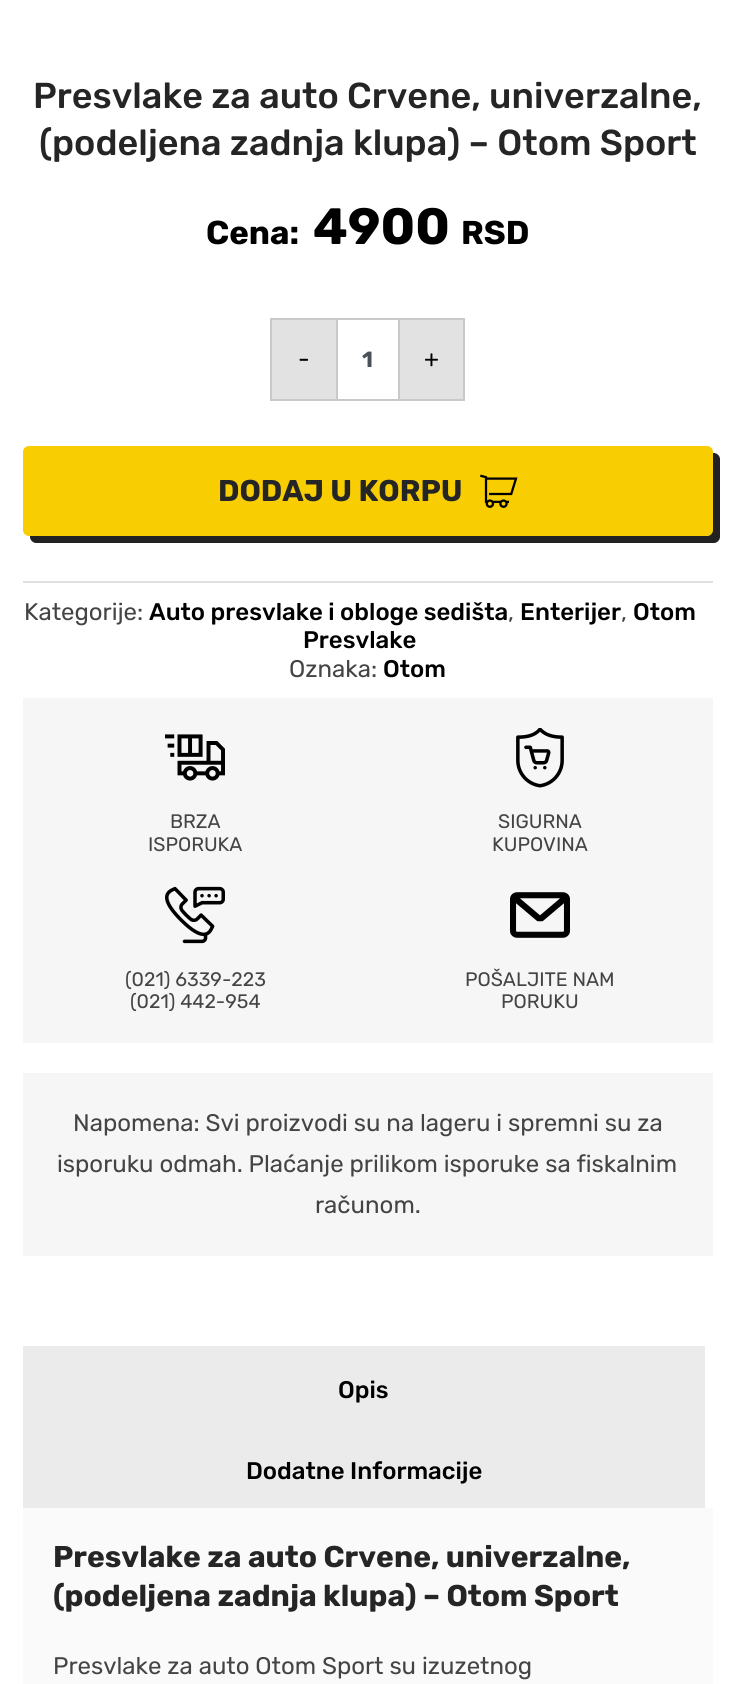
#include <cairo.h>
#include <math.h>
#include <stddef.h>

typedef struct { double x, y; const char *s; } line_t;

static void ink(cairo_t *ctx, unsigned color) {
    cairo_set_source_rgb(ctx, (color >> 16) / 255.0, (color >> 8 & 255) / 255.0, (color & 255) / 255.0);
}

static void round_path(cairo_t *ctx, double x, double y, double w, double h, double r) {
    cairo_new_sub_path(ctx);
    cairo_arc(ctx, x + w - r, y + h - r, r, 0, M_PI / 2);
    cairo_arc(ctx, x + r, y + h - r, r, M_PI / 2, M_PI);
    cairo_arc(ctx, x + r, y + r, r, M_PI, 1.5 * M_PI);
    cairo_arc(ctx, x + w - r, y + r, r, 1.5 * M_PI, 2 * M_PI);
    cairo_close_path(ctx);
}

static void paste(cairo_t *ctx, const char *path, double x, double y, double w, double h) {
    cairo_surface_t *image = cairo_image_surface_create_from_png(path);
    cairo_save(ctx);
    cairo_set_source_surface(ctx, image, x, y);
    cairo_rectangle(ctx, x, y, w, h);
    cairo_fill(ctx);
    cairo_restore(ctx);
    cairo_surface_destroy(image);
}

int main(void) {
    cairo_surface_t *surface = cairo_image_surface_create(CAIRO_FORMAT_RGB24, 734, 1684);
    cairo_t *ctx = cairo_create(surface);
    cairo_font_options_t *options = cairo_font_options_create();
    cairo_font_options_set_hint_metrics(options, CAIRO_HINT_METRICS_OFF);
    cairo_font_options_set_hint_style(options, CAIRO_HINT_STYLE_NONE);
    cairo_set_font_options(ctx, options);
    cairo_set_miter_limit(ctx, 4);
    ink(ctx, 0xFFFFFF);
    cairo_paint(ctx);
    cairo_select_font_face(ctx, "Rubik Medium", CAIRO_FONT_SLANT_NORMAL, CAIRO_FONT_WEIGHT_NORMAL);
    cairo_set_font_size(ctx, 36);
    ink(ctx, 0x252525);
    cairo_move_to(ctx, 33, 108);
    cairo_show_text(ctx, "Presvlake za auto Crvene, univerzalne,");
    cairo_move_to(ctx, 39, 155);
    cairo_show_text(ctx, "(podeljena zadnja klupa) – Otom Sport");
    cairo_select_font_face(ctx, "Rubik", CAIRO_FONT_SLANT_NORMAL, CAIRO_FONT_WEIGHT_BOLD);
    cairo_set_font_size(ctx, 33);
    ink(ctx, 0x000000);
    cairo_move_to(ctx, 206, 244);
    cairo_show_text(ctx, "Cena:");
    cairo_set_font_size(ctx, 51);
    cairo_move_to(ctx, 313, 244);
    cairo_show_text(ctx, "4900");
    cairo_set_font_size(ctx, 33);
    cairo_move_to(ctx, 461, 244);
    cairo_show_text(ctx, "RSD");
    ink(ctx, 0xE2E2E2);
    cairo_rectangle(ctx, 271, 319, 66, 81);
    cairo_fill_preserve(ctx);
    ink(ctx, 0xCAC9C9);
    cairo_stroke(ctx);
    cairo_select_font_face(ctx, "Rubik", CAIRO_FONT_SLANT_NORMAL, CAIRO_FONT_WEIGHT_NORMAL);
    cairo_set_font_size(ctx, 24);
    ink(ctx, 0x000000);
    cairo_move_to(ctx, 298, 367);
    cairo_show_text(ctx, "-");
    ink(ctx, 0xCAC9C9);
    cairo_rectangle(ctx, 338, 318, 60, 2);
    cairo_fill(ctx);
    cairo_rectangle(ctx, 338, 399, 60, 2);
    cairo_fill(ctx);
    cairo_select_font_face(ctx, "Rubik", CAIRO_FONT_SLANT_NORMAL, CAIRO_FONT_WEIGHT_BOLD);
    cairo_set_font_size(ctx, 22);
    ink(ctx, 0x495057);
    cairo_move_to(ctx, 362, 367);
    cairo_show_text(ctx, "1");
    ink(ctx, 0xE2E2E2);
    cairo_rectangle(ctx, 399, 319, 65, 81);
    cairo_fill_preserve(ctx);
    ink(ctx, 0xCAC9C9);
    cairo_stroke(ctx);
    cairo_select_font_face(ctx, "Rubik", CAIRO_FONT_SLANT_NORMAL, CAIRO_FONT_WEIGHT_NORMAL);
    cairo_set_font_size(ctx, 24);
    ink(ctx, 0x000000);
    cairo_move_to(ctx, 424, 367);
    cairo_show_text(ctx, "+");
    ink(ctx, 0x212121);
    cairo_new_path(ctx);
    cairo_move_to(ctx, 30, 536);
    cairo_line_to(ctx, 30, 537);
    cairo_curve_to(ctx, 30, 540, 33, 543, 36, 543);
    cairo_line_to(ctx, 714, 543);
    cairo_curve_to(ctx, 717, 543, 720, 540, 720, 537);
    cairo_line_to(ctx, 720, 459);
    cairo_curve_to(ctx, 720, 456, 717, 453, 714, 453);
    cairo_line_to(ctx, 712, 453);
    cairo_line_to(ctx, 712, 530);
    cairo_curve_to(ctx, 712, 533, 710, 536, 706, 536);
    cairo_close_path(ctx);
    cairo_fill(ctx);
    ink(ctx, 0xF8CE02);
    round_path(ctx, 24, 447, 688, 88, 5);
    cairo_fill_preserve(ctx);
    cairo_stroke(ctx);
    cairo_select_font_face(ctx, "Rubik", CAIRO_FONT_SLANT_NORMAL, CAIRO_FONT_WEIGHT_BOLD);
    cairo_set_font_size(ctx, 30);
    ink(ctx, 0x252525);
    cairo_move_to(ctx, 218, 501);
    cairo_show_text(ctx, "DODAJ U KORPU");
    paste(ctx, "media/1.png", 480, 474, 38, 34);
    ink(ctx, 0xE0E0E0);
    cairo_rectangle(ctx, 23, 581, 690, 2);
    cairo_fill(ctx);
    cairo_select_font_face(ctx, "Rubik", CAIRO_FONT_SLANT_NORMAL, CAIRO_FONT_WEIGHT_NORMAL);
    cairo_set_font_size(ctx, 24);
    ink(ctx, 0x444444);
    cairo_move_to(ctx, 24, 620);
    cairo_show_text(ctx, "Kategorije:");
    cairo_select_font_face(ctx, "Rubik Medium", CAIRO_FONT_SLANT_NORMAL, CAIRO_FONT_WEIGHT_NORMAL);
    ink(ctx, 0x000000);
    cairo_move_to(ctx, 149, 620);
    cairo_show_text(ctx, "Auto presvlake i obloge sedišta");
    cairo_select_font_face(ctx, "Rubik", CAIRO_FONT_SLANT_NORMAL, CAIRO_FONT_WEIGHT_NORMAL);
    ink(ctx, 0x444444);
    cairo_move_to(ctx, 508, 620);
    cairo_show_text(ctx, ",");
    cairo_select_font_face(ctx, "Rubik Medium", CAIRO_FONT_SLANT_NORMAL, CAIRO_FONT_WEIGHT_NORMAL);
    ink(ctx, 0x000000);
    cairo_move_to(ctx, 520, 620);
    cairo_show_text(ctx, "Enterijer");
    cairo_select_font_face(ctx, "Rubik", CAIRO_FONT_SLANT_NORMAL, CAIRO_FONT_WEIGHT_NORMAL);
    ink(ctx, 0x444444);
    cairo_move_to(ctx, 621, 620);
    cairo_show_text(ctx, ",");
    cairo_select_font_face(ctx, "Rubik Medium", CAIRO_FONT_SLANT_NORMAL, CAIRO_FONT_WEIGHT_NORMAL);
    ink(ctx, 0x000000);
    cairo_move_to(ctx, 633, 620);
    cairo_show_text(ctx, "Otom");
    cairo_move_to(ctx, 303, 648);
    cairo_show_text(ctx, "Presvlake");
    cairo_select_font_face(ctx, "Rubik", CAIRO_FONT_SLANT_NORMAL, CAIRO_FONT_WEIGHT_NORMAL);
    ink(ctx, 0x444444);
    cairo_move_to(ctx, 289, 677);
    cairo_show_text(ctx, "Oznaka:");
    cairo_select_font_face(ctx, "Rubik Medium", CAIRO_FONT_SLANT_NORMAL, CAIRO_FONT_WEIGHT_NORMAL);
    ink(ctx, 0x000000);
    cairo_move_to(ctx, 383, 677);
    cairo_show_text(ctx, "Otom");
    ink(ctx, 0xF6F6F6);
    cairo_rectangle(ctx, 23, 698, 690, 345);
    cairo_fill(ctx);
    paste(ctx, "media/2.png", 165, 734, 60, 47);
    cairo_select_font_face(ctx, "Rubik", CAIRO_FONT_SLANT_NORMAL, CAIRO_FONT_WEIGHT_NORMAL);
    cairo_set_font_size(ctx, 19.5);
    ink(ctx, 0x444444);
    cairo_move_to(ctx, 170, 828);
    cairo_show_text(ctx, "BRZA");
    cairo_move_to(ctx, 148, 851);
    cairo_show_text(ctx, "ISPORUKA");
    paste(ctx, "media/3.png", 516, 728, 48, 60);
    cairo_move_to(ctx, 498, 828);
    cairo_show_text(ctx, "SIGURNA");
    cairo_move_to(ctx, 492, 851);
    cairo_show_text(ctx, "KUPOVINA");
    paste(ctx, "media/4.png", 165, 886, 60, 58);
    cairo_move_to(ctx, 125, 986);
    cairo_show_text(ctx, "(021) 6339-223");
    cairo_move_to(ctx, 130, 1008);
    cairo_show_text(ctx, "(021) 442-954");
    paste(ctx, "media/5.png", 510, 892, 60, 46);
    cairo_move_to(ctx, 465, 986);
    cairo_show_text(ctx, "POŠALJITE NAM");
    cairo_move_to(ctx, 501, 1008);
    cairo_show_text(ctx, "PORUKU");
    ink(ctx, 0xF6F6F6);
    cairo_rectangle(ctx, 23, 1073, 690, 183);
    cairo_fill(ctx);
    cairo_set_font_size(ctx, 24);
    ink(ctx, 0x444444);
    {
        static const line_t items[] = {
            {73, 1131, "Napomena: Svi proizvodi su na lageru i spremni su za"},
            {57, 1172, "isporuku odmah. Plaćanje prilikom isporuke sa fiskalnim"},
            {315, 1213, "računom."},
        };
        for (size_t i = 0; i < sizeof items / sizeof *items; i++) {
            cairo_move_to(ctx, items[i].x, items[i].y);
            cairo_show_text(ctx, items[i].s);
        }
    }
    ink(ctx, 0xEBEBEB);
    cairo_rectangle(ctx, 23, 1346, 682, 162);
    cairo_fill(ctx);
    cairo_select_font_face(ctx, "Rubik Medium", CAIRO_FONT_SLANT_NORMAL, CAIRO_FONT_WEIGHT_NORMAL);
    ink(ctx, 0x000000);
    cairo_move_to(ctx, 338, 1398);
    cairo_show_text(ctx, "Opis");
    cairo_move_to(ctx, 246, 1479);
    cairo_show_text(ctx, "Dodatne Informacije");
    ink(ctx, 0xFAFAFA);
    cairo_rectangle(ctx, 23, 1508, 690, 176);
    cairo_fill(ctx);
    cairo_select_font_face(ctx, "Rubik", CAIRO_FONT_SLANT_NORMAL, CAIRO_FONT_WEIGHT_BOLD);
    cairo_set_font_size(ctx, 30);
    ink(ctx, 0x252525);
    cairo_move_to(ctx, 53, 1567);
    cairo_show_text(ctx, "Presvlake za auto Crvene, univerzalne,");
    cairo_move_to(ctx, 53, 1606);
    cairo_show_text(ctx, "(podeljena zadnja klupa) – Otom Sport");
    cairo_select_font_face(ctx, "Rubik", CAIRO_FONT_SLANT_NORMAL, CAIRO_FONT_WEIGHT_NORMAL);
    cairo_set_font_size(ctx, 24);
    ink(ctx, 0x444444);
    cairo_move_to(ctx, 53, 1674);
    cairo_show_text(ctx, "Presvlake za auto Otom Sport su izuzetnog");
    cairo_surface_write_to_png(surface, "image.png");
    cairo_font_options_destroy(options);
    cairo_destroy(ctx);
    cairo_surface_destroy(surface);
    return 0;
}
